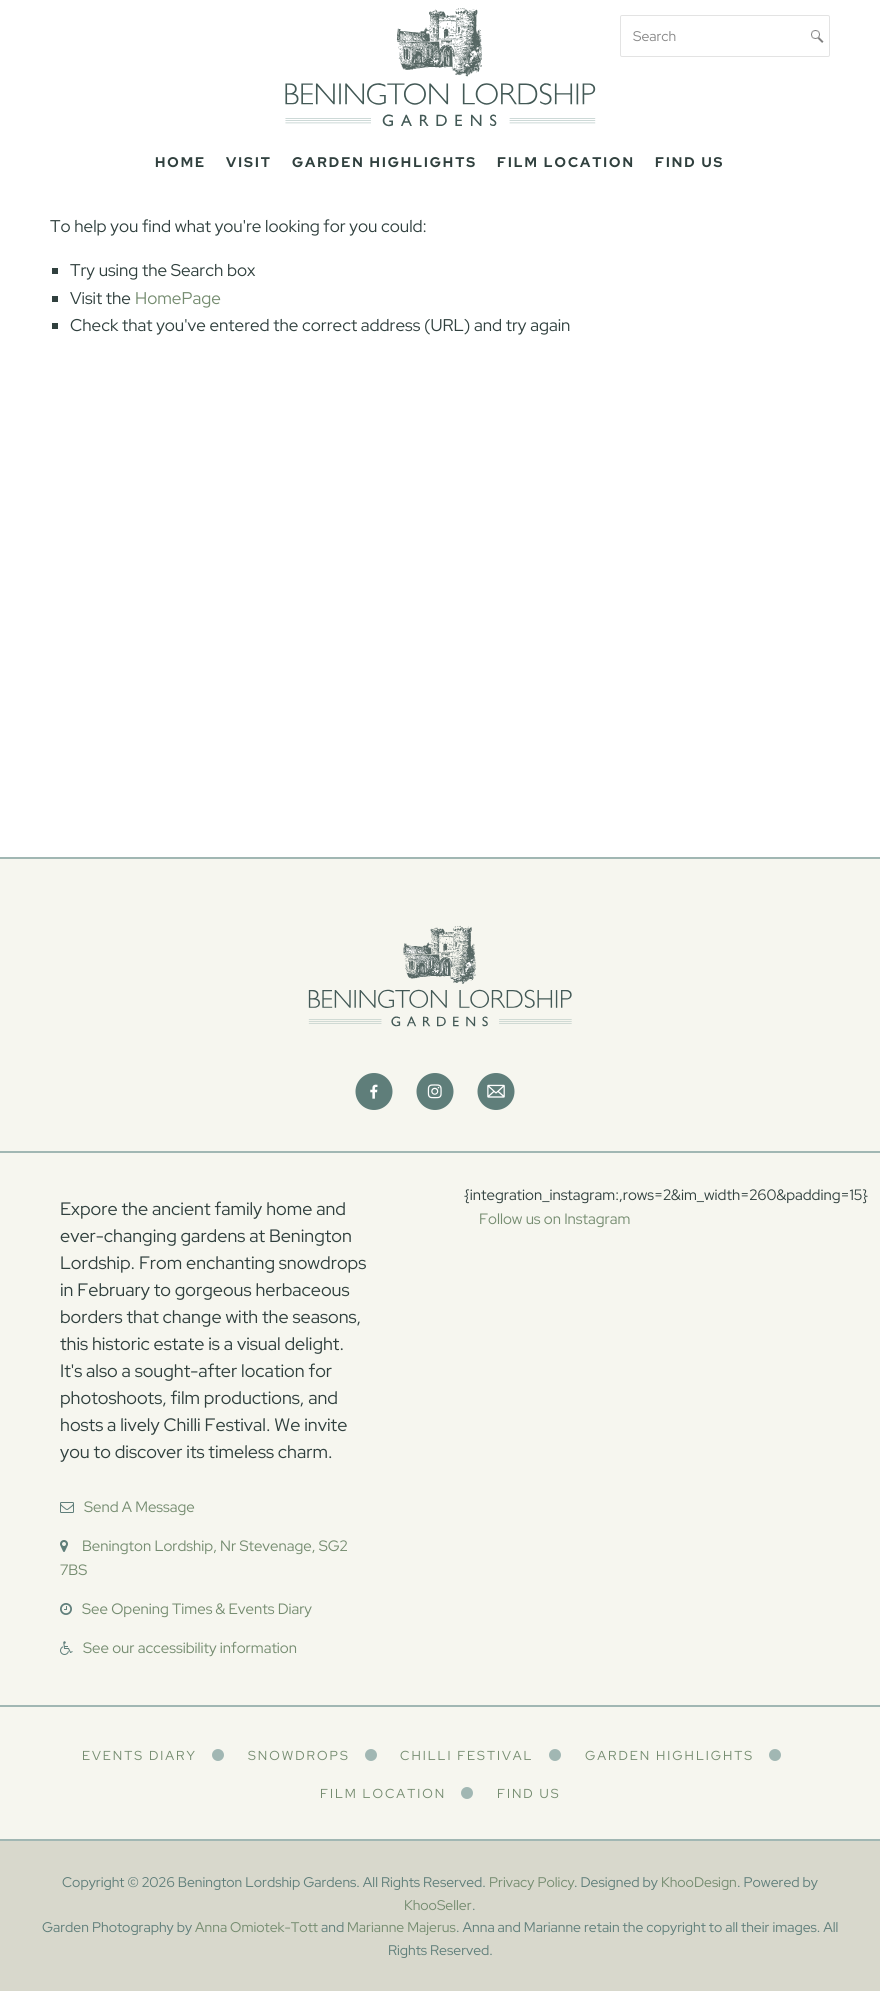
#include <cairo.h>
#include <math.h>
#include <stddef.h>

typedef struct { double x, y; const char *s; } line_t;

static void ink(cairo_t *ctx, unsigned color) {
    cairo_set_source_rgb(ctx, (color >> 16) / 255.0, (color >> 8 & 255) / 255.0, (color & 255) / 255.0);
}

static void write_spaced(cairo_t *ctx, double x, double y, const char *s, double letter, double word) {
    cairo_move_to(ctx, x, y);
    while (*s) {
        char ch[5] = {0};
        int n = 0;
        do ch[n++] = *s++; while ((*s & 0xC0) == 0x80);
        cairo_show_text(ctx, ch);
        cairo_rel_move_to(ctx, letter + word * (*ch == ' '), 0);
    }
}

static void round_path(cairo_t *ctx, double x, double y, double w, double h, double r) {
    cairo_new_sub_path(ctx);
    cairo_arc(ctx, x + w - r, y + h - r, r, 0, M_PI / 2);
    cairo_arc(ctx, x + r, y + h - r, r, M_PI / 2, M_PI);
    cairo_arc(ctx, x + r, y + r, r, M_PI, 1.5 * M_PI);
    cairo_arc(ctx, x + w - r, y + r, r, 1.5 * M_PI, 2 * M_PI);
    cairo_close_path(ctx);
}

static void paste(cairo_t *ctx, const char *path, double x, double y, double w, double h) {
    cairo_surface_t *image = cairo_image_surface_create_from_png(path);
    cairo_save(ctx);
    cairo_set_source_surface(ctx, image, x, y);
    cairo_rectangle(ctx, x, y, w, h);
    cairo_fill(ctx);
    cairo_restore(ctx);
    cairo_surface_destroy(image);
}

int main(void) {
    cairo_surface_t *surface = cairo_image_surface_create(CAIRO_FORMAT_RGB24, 880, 1991);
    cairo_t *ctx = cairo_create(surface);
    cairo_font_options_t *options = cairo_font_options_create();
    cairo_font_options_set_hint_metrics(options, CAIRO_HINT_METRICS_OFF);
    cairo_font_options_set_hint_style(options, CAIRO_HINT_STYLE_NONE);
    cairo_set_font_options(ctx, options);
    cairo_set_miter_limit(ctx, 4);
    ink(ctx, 0xFFFFFF);
    cairo_paint(ctx);
    paste(ctx, "media/1.png", 285, 8, 311, 119);
    paste(ctx, "media/2.png", 811, 30, 13, 13);
    round_path(ctx, 620.5, 15.5, 209, 41, 1.5);
    ink(ctx, 0xE3E3E3);
    cairo_set_line_width(ctx, 1);
    cairo_stroke(ctx);
    cairo_select_font_face(ctx, "Red Hat Display", CAIRO_FONT_SLANT_NORMAL, CAIRO_FONT_WEIGHT_NORMAL);
    cairo_set_font_size(ctx, 14);
    ink(ctx, 0x888888);
    cairo_move_to(ctx, 633, 41);
    cairo_show_text(ctx, "Search");
    cairo_select_font_face(ctx, "Red Hat Display", CAIRO_FONT_SLANT_NORMAL, CAIRO_FONT_WEIGHT_BOLD);
    ink(ctx, 0x30403E);
    {
        static const line_t items[] = {
            {155, 167, "HOME"},
            {226, 167, "VISIT"},
            {292, 167, "GARDEN HIGHLIGHTS"},
            {497, 167, "FILM LOCATION"},
            {655, 167, "FIND US"},
        };
        for (size_t i = 0; i < sizeof items / sizeof *items; i++) {
            write_spaced(ctx, items[i].x, items[i].y, items[i].s, 2, 0);
        }
    }
    cairo_select_font_face(ctx, "Red Hat Display", CAIRO_FONT_SLANT_NORMAL, CAIRO_FONT_WEIGHT_NORMAL);
    cairo_set_font_size(ctx, 17);
    cairo_move_to(ctx, 50, 232);
    cairo_show_text(ctx, "To help you find what you're looking for you could:");
    cairo_rectangle(ctx, 52, 268, 6, 6);
    cairo_fill(ctx);
    cairo_move_to(ctx, 70, 276);
    cairo_show_text(ctx, "Try using the Search box");
    cairo_rectangle(ctx, 52, 296, 6, 6);
    cairo_fill(ctx);
    cairo_move_to(ctx, 70, 304);
    cairo_show_text(ctx, "Visit the");
    ink(ctx, 0x758C70);
    cairo_move_to(ctx, 135, 304);
    cairo_show_text(ctx, "HomePage");
    ink(ctx, 0x30403E);
    cairo_rectangle(ctx, 52, 323, 6, 6);
    cairo_fill(ctx);
    cairo_move_to(ctx, 70, 331);
    cairo_show_text(ctx, "Check that you've entered the correct address (URL) and try again");
    ink(ctx, 0xF6F6EF);
    cairo_rectangle(ctx, 0, 859, 880, 980);
    cairo_fill(ctx);
    ink(ctx, 0xA1B7B3);
    cairo_rectangle(ctx, 0, 857, 880, 2);
    cairo_fill(ctx);
    paste(ctx, "media/3.png", 308, 925, 264, 102);
    paste(ctx, "media/4.png", 355, 1073, 38, 37);
    paste(ctx, "media/5.png", 416, 1073, 38, 37);
    paste(ctx, "media/6.png", 477, 1073, 38, 37);
    cairo_rectangle(ctx, 0, 1151, 880, 2);
    cairo_fill(ctx);
    cairo_set_font_size(ctx, 18);
    ink(ctx, 0x30403E);
    {
        static const line_t items[] = {
            {60, 1215, "Expore the ancient family home and"},
            {60, 1242, "ever-changing gardens at Benington"},
            {60, 1269, "Lordship. From enchanting snowdrops"},
            {60, 1296, "in February to gorgeous herbaceous"},
            {60, 1323, "borders that change with the seasons,"},
            {60, 1350, "this historic estate is a visual delight."},
            {60, 1377, "It's also a sought-after location for"},
            {60, 1404, "photoshoots, film productions, and"},
            {60, 1431, "hosts a lively Chilli Festival. We invite"},
            {60, 1458, "you to discover its timeless charm."},
        };
        for (size_t i = 0; i < sizeof items / sizeof *items; i++) {
            cairo_move_to(ctx, items[i].x, items[i].y);
            cairo_show_text(ctx, items[i].s);
        }
    }
    paste(ctx, "media/7.png", 60, 1502, 14, 11);
    cairo_set_font_size(ctx, 15);
    ink(ctx, 0x758C70);
    cairo_move_to(ctx, 84, 1512);
    cairo_show_text(ctx, "Send A Message");
    paste(ctx, "media/8.png", 60, 1540, 8, 12);
    cairo_move_to(ctx, 82, 1551);
    cairo_show_text(ctx, "Benington Lordship, Nr Stevenage, SG2");
    cairo_move_to(ctx, 60, 1575);
    cairo_show_text(ctx, "7BS");
    paste(ctx, "media/9.png", 60, 1603, 12, 12);
    cairo_move_to(ctx, 82, 1614);
    cairo_show_text(ctx, "See Opening Times & Events Diary");
    paste(ctx, "media/10.png", 60, 1641, 13, 14);
    cairo_move_to(ctx, 83, 1653);
    cairo_show_text(ctx, "See our accessibility information");
    ink(ctx, 0x30403E);
    cairo_move_to(ctx, 464, 1200);
    cairo_show_text(ctx, "{integration_instagram:,rows=2&im_width=260&padding=15}");
    ink(ctx, 0x758C70);
    cairo_move_to(ctx, 479, 1224);
    cairo_show_text(ctx, "Follow us on Instagram");
    ink(ctx, 0xA1B7B3);
    cairo_rectangle(ctx, 0, 1705, 880, 2);
    cairo_fill(ctx);
    cairo_set_font_size(ctx, 13);
    ink(ctx, 0x758C70);
    write_spaced(ctx, 82, 1760, "EVENTS DIARY", 2, 0);
    paste(ctx, "media/11.png", 212, 1749, 12, 12);
    write_spaced(ctx, 248, 1760, "SNOWDROPS", 2, 0);
    paste(ctx, "media/11.png", 365, 1749, 12, 12);
    write_spaced(ctx, 400, 1760, "CHILLI FESTIVAL", 2, 0);
    paste(ctx, "media/11.png", 549, 1749, 12, 12);
    write_spaced(ctx, 585, 1760, "GARDEN HIGHLIGHTS", 2, 0);
    paste(ctx, "media/11.png", 769, 1749, 12, 12);
    write_spaced(ctx, 320, 1798, "FILM LOCATION", 2, 0);
    paste(ctx, "media/11.png", 461, 1787, 12, 12);
    write_spaced(ctx, 497, 1798, "FIND US", 2, 0);
    ink(ctx, 0xA1B7B3);
    cairo_rectangle(ctx, 0, 1839, 880, 2);
    cairo_fill(ctx);
    ink(ctx, 0xD8D8CC);
    cairo_rectangle(ctx, 0, 1841, 880, 150);
    cairo_fill(ctx);
    cairo_set_font_size(ctx, 14);
    ink(ctx, 0x5F7E7A);
    cairo_move_to(ctx, 62, 1887);
    cairo_show_text(ctx, "Copyright © 2026 Benington Lordship Gardens. All Rights Reserved.");
    ink(ctx, 0x758C70);
    cairo_move_to(ctx, 489, 1887);
    cairo_show_text(ctx, "Privacy Policy");
    ink(ctx, 0x5F7E7A);
    cairo_move_to(ctx, 574, 1887);
    cairo_show_text(ctx, ". Designed by");
    ink(ctx, 0x758C70);
    cairo_move_to(ctx, 661, 1887);
    cairo_show_text(ctx, "KhooDesign");
    ink(ctx, 0x5F7E7A);
    cairo_move_to(ctx, 737, 1887);
    cairo_show_text(ctx, ". Powered by");
    ink(ctx, 0x758C70);
    cairo_move_to(ctx, 404, 1910);
    cairo_show_text(ctx, "KhooSeller");
    ink(ctx, 0x5F7E7A);
    cairo_move_to(ctx, 472, 1910);
    cairo_show_text(ctx, ".");
    cairo_move_to(ctx, 42, 1932);
    cairo_show_text(ctx, "Garden Photography by");
    ink(ctx, 0x758C70);
    cairo_move_to(ctx, 195, 1932);
    cairo_show_text(ctx, "Anna Omiotek-Tott");
    ink(ctx, 0x5F7E7A);
    cairo_move_to(ctx, 321, 1932);
    cairo_show_text(ctx, "and");
    ink(ctx, 0x758C70);
    cairo_move_to(ctx, 347, 1932);
    cairo_show_text(ctx, "Marianne Majerus");
    ink(ctx, 0x5F7E7A);
    cairo_move_to(ctx, 456, 1932);
    cairo_show_text(ctx, ". Anna and Marianne retain the copyright to all their images. All");
    cairo_move_to(ctx, 388, 1955);
    cairo_show_text(ctx, "Rights Reserved.");
    cairo_surface_write_to_png(surface, "image.png");
    cairo_font_options_destroy(options);
    cairo_destroy(ctx);
    cairo_surface_destroy(surface);
    return 0;
}
